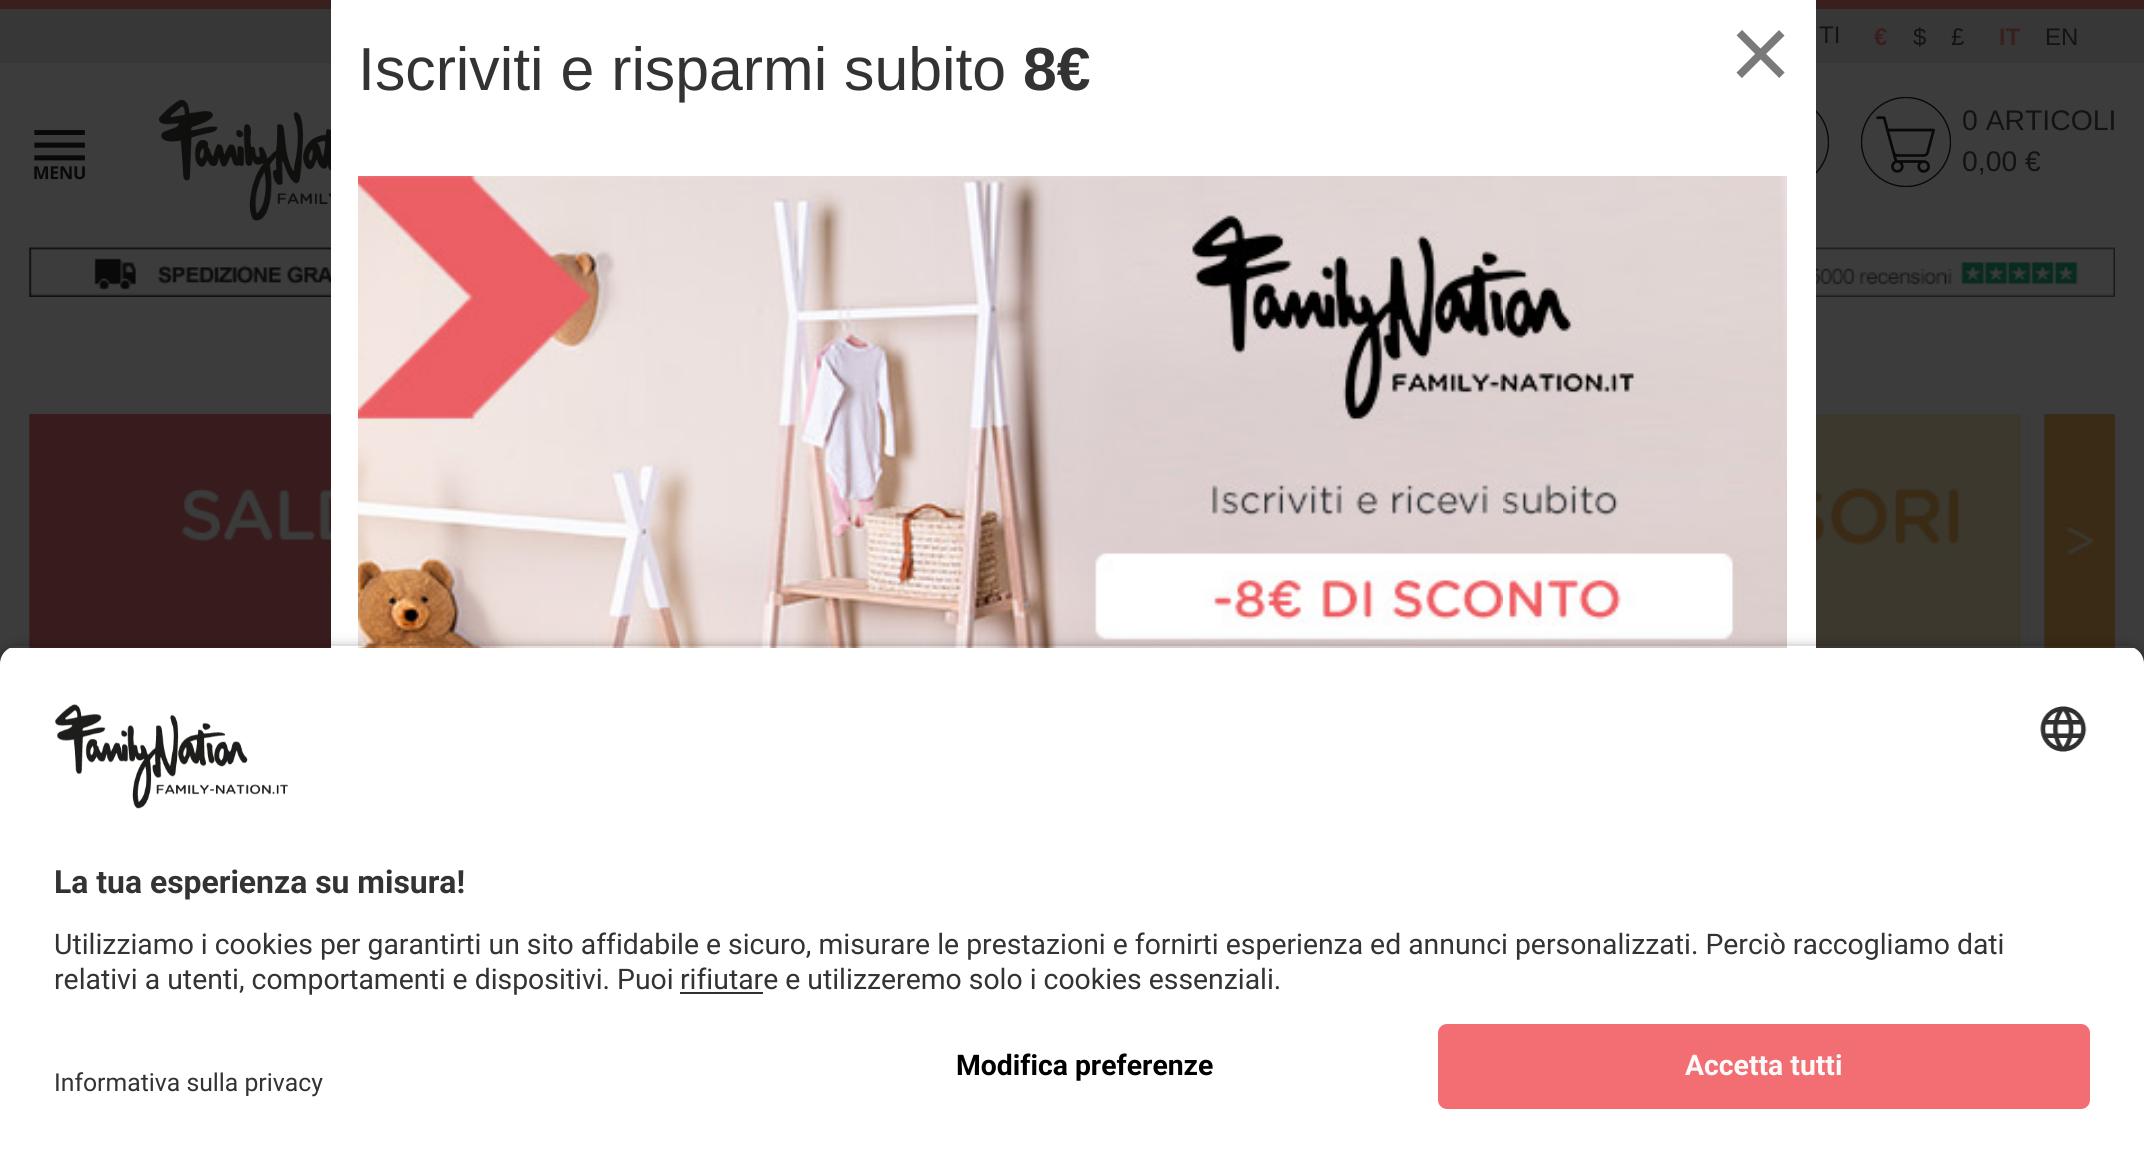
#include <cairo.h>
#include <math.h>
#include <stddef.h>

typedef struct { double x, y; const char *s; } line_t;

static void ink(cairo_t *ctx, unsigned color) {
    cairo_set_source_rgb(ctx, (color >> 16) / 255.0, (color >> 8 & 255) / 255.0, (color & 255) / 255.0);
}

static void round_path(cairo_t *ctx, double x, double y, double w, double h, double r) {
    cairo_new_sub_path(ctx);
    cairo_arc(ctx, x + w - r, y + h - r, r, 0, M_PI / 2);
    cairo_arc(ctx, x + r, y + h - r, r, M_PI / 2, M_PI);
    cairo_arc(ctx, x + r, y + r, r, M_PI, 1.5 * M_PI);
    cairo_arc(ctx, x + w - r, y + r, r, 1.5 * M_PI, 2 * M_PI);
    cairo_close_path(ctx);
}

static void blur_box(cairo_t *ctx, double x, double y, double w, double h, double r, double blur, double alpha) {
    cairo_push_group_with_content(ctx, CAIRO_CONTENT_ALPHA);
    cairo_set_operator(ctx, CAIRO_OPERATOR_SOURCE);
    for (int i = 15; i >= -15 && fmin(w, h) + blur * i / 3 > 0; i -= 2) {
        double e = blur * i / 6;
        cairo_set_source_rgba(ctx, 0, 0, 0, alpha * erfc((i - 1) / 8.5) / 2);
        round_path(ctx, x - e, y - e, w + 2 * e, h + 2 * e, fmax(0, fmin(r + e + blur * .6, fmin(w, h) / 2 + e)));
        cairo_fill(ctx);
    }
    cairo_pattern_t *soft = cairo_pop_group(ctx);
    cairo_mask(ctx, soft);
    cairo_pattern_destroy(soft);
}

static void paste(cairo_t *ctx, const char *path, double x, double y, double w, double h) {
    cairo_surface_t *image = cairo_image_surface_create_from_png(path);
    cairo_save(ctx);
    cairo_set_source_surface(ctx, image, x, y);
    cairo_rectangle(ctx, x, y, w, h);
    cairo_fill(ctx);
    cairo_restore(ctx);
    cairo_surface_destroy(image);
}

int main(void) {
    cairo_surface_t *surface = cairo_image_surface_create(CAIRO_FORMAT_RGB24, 2144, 1162);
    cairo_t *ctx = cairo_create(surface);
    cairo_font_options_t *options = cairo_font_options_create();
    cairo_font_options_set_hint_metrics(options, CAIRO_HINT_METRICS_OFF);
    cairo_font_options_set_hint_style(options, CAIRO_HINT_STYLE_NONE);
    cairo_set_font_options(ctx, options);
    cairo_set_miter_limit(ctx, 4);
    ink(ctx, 0x3C3C3C);
    cairo_paint(ctx);
    ink(ctx, 0x373737);
    cairo_rectangle(ctx, 0, 9, 2144, 54);
    cairo_fill(ctx);
    ink(ctx, 0x391F1D);
    cairo_rectangle(ctx, 0, 0, 2144, 9);
    cairo_fill(ctx);
    cairo_save(ctx);
    cairo_rectangle(ctx, 1739, 97, 90, 90);
    cairo_clip(ctx);
    cairo_arc(ctx, 1784, 142, 44.5, 0, 2 * M_PI);
    ink(ctx, 0x090909);
    cairo_set_line_width(ctx, 1.4);
    cairo_stroke(ctx);
    cairo_restore(ctx);
    ink(ctx, 0xFFFFFF);
    cairo_rectangle(ctx, 331, 0, 1485, 648);
    cairo_fill(ctx);
    cairo_select_font_face(ctx, "Liberation Sans", CAIRO_FONT_SLANT_NORMAL, CAIRO_FONT_WEIGHT_NORMAL);
    cairo_set_font_size(ctx, 60.75);
    ink(ctx, 0x333333);
    cairo_move_to(ctx, 358, 90);
    cairo_show_text(ctx, "Iscriviti e risparmi subito");
    cairo_select_font_face(ctx, "Liberation Sans", CAIRO_FONT_SLANT_NORMAL, CAIRO_FONT_WEIGHT_BOLD);
    cairo_move_to(ctx, 1023, 90);
    cairo_show_text(ctx, "8€");
    cairo_select_font_face(ctx, "Liberation Sans", CAIRO_FONT_SLANT_NORMAL, CAIRO_FONT_WEIGHT_NORMAL);
    cairo_set_font_size(ctx, 108);
    ink(ctx, 0x7A7A7A);
    cairo_move_to(ctx, 1729, 90);
    cairo_show_text(ctx, "×");
    paste(ctx, "media/1.png", 358, 176, 1429, 472);
    cairo_set_font_size(ctx, 24);
    ink(ctx, 0x131313);
    cairo_move_to(ctx, 1819, 43);
    cairo_show_text(ctx, "TI");
    cairo_select_font_face(ctx, "Liberation Sans", CAIRO_FONT_SLANT_NORMAL, CAIRO_FONT_WEIGHT_BOLD);
    ink(ctx, 0x391F1D);
    cairo_move_to(ctx, 1874, 45);
    cairo_show_text(ctx, "€");
    cairo_select_font_face(ctx, "Liberation Sans", CAIRO_FONT_SLANT_NORMAL, CAIRO_FONT_WEIGHT_NORMAL);
    ink(ctx, 0x131313);
    cairo_move_to(ctx, 1913, 45);
    cairo_show_text(ctx, "$");
    cairo_move_to(ctx, 1951, 45);
    cairo_show_text(ctx, "£");
    cairo_select_font_face(ctx, "Liberation Sans", CAIRO_FONT_SLANT_NORMAL, CAIRO_FONT_WEIGHT_BOLD);
    ink(ctx, 0x391F1D);
    cairo_move_to(ctx, 1999, 45);
    cairo_show_text(ctx, "IT");
    cairo_select_font_face(ctx, "Liberation Sans", CAIRO_FONT_SLANT_NORMAL, CAIRO_FONT_WEIGHT_NORMAL);
    ink(ctx, 0x131313);
    cairo_move_to(ctx, 2045, 45);
    cairo_show_text(ctx, "EN");
    paste(ctx, "media/2.png", 34, 130, 51, 50);
    paste(ctx, "media/3.png", 159, 100, 172, 121);
    paste(ctx, "media/4.png", 1861, 97, 90, 90);
    cairo_set_font_size(ctx, 28.35);
    cairo_move_to(ctx, 1962, 130);
    cairo_show_text(ctx, "0 ARTICOLI");
    cairo_move_to(ctx, 1962, 171);
    cairo_show_text(ctx, "0,00 €");
    paste(ctx, "media/5.png", 29, 247, 302, 50);
    paste(ctx, "media/6.png", 1816, 247, 299, 50);
    paste(ctx, "media/7.png", 29, 414, 302, 234);
    paste(ctx, "media/8.png", 1816, 414, 299, 234);
    cairo_save(ctx);
    cairo_set_fill_rule(ctx, CAIRO_FILL_RULE_EVEN_ODD);
    cairo_new_path(ctx);
    cairo_move_to(ctx, 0, 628);
    cairo_line_to(ctx, 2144, 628);
    cairo_line_to(ctx, 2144, 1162);
    cairo_line_to(ctx, 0, 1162);
    cairo_close_path(ctx);
    cairo_move_to(ctx, 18, 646);
    cairo_line_to(ctx, 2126, 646);
    cairo_curve_to(ctx, 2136, 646, 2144, 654, 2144, 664);
    cairo_line_to(ctx, 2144, 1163);
    cairo_line_to(ctx, 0, 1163);
    cairo_line_to(ctx, 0, 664);
    cairo_curve_to(ctx, 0, 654, 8, 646, 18, 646);
    cairo_close_path(ctx);
    cairo_clip(ctx);
    ink(ctx, 0x000000);
    blur_box(ctx, 0, 653, 2144, 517, 18, 8, 0.8);
    cairo_restore(ctx);
    cairo_save(ctx);
    cairo_new_path(ctx);
    cairo_move_to(ctx, 18, 646);
    cairo_line_to(ctx, 2126, 646);
    cairo_curve_to(ctx, 2136, 646, 2144, 654, 2144, 664);
    cairo_line_to(ctx, 2144, 1006);
    cairo_line_to(ctx, 0, 1006);
    cairo_line_to(ctx, 0, 664);
    cairo_curve_to(ctx, 0, 654, 8, 646, 18, 646);
    cairo_close_path(ctx);
    cairo_clip(ctx);
    ink(ctx, 0xFFFFFF);
    cairo_rectangle(ctx, 0, 648, 2144, 358);
    cairo_fill(ctx);
    cairo_restore(ctx);
    paste(ctx, "media/9.png", 55, 704, 234, 105);
    paste(ctx, "media/10.png", 2040, 706, 47, 46);
    cairo_select_font_face(ctx, "Roboto", CAIRO_FONT_SLANT_NORMAL, CAIRO_FONT_WEIGHT_BOLD);
    cairo_set_font_size(ctx, 31.9);
    ink(ctx, 0x333333);
    cairo_move_to(ctx, 54, 893);
    cairo_show_text(ctx, "La tua esperienza su misura!");
    cairo_select_font_face(ctx, "Roboto", CAIRO_FONT_SLANT_NORMAL, CAIRO_FONT_WEIGHT_NORMAL);
    cairo_set_font_size(ctx, 28.35);
    {
        static const line_t items[] = {
            {54, 954, "Utilizziamo i cookies per garantirti un sito affidabile e sicuro, misurare le prestazioni e fornirti esperienza ed annunci personalizzati. Perciò raccogliamo dati"},
            {54, 989, "relativi a utenti, comportamenti e dispositivi. Puoi"},
            {680, 989, "rifiutare e utilizzeremo solo i cookies essenziali."},
        };
        for (size_t i = 0; i < sizeof items / sizeof *items; i++) {
            cairo_move_to(ctx, items[i].x, items[i].y);
            cairo_show_text(ctx, items[i].s);
        }
    }
    ink(ctx, 0x303030);
    cairo_rectangle(ctx, 680, 992, 83, 2);
    cairo_fill(ctx);
    ink(ctx, 0xFFFFFF);
    cairo_rectangle(ctx, 0, 1006, 2144, 156);
    cairo_fill(ctx);
    cairo_select_font_face(ctx, "Roboto", CAIRO_FONT_SLANT_NORMAL, CAIRO_FONT_WEIGHT_BOLD);
    ink(ctx, 0x000000);
    cairo_move_to(ctx, 956, 1075);
    cairo_show_text(ctx, "Modifica preferenze");
    ink(ctx, 0xF26E72);
    round_path(ctx, 1438, 1024, 652, 85, 9);
    cairo_fill(ctx);
    ink(ctx, 0xFAFAFA);
    cairo_move_to(ctx, 1685, 1075);
    cairo_show_text(ctx, "Accetta tutti");
    cairo_select_font_face(ctx, "Roboto", CAIRO_FONT_SLANT_NORMAL, CAIRO_FONT_WEIGHT_NORMAL);
    cairo_set_font_size(ctx, 24.75);
    ink(ctx, 0x333333);
    cairo_move_to(ctx, 54, 1091);
    cairo_show_text(ctx, "Informativa sulla privacy");
    cairo_surface_write_to_png(surface, "image.png");
    cairo_font_options_destroy(options);
    cairo_destroy(ctx);
    cairo_surface_destroy(surface);
    return 0;
}
